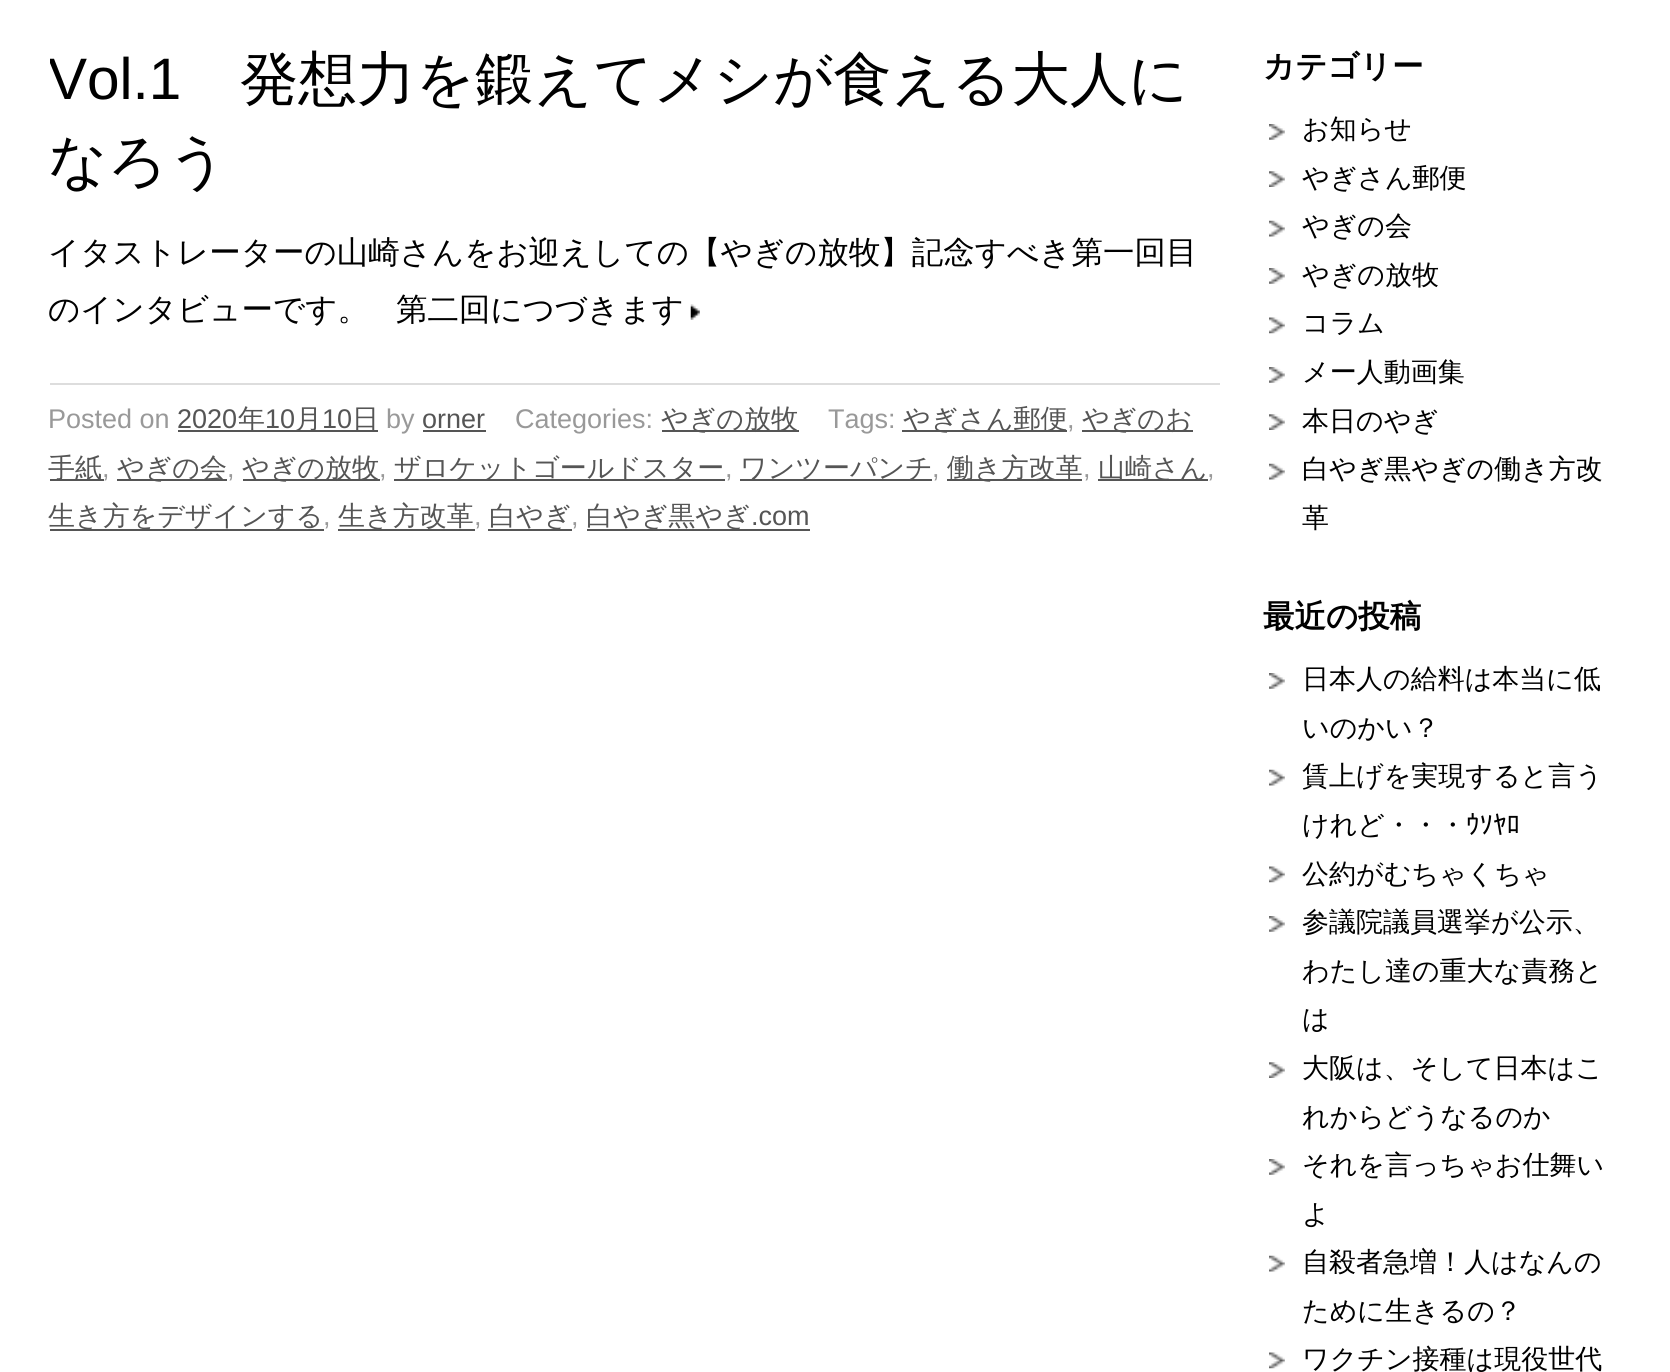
#include <cairo.h>
#include <math.h>
#include <stddef.h>

typedef struct { double x, y; const char *s; } line_t;

static void ink(cairo_t *ctx, unsigned color) {
    cairo_set_source_rgb(ctx, (color >> 16) / 255.0, (color >> 8 & 255) / 255.0, (color & 255) / 255.0);
}

static void paste(cairo_t *ctx, const char *path, double x, double y, double w, double h) {
    cairo_surface_t *image = cairo_image_surface_create_from_png(path);
    cairo_save(ctx);
    cairo_set_source_surface(ctx, image, x, y);
    cairo_rectangle(ctx, x, y, w, h);
    cairo_fill(ctx);
    cairo_restore(ctx);
    cairo_surface_destroy(image);
}

int main(void) {
    cairo_surface_t *surface = cairo_image_surface_create(CAIRO_FORMAT_RGB24, 1670, 1372);
    cairo_t *ctx = cairo_create(surface);
    cairo_font_options_t *options = cairo_font_options_create();
    cairo_font_options_set_hint_metrics(options, CAIRO_HINT_METRICS_OFF);
    cairo_font_options_set_hint_style(options, CAIRO_HINT_STYLE_NONE);
    cairo_set_font_options(ctx, options);
    cairo_set_miter_limit(ctx, 4);
    ink(ctx, 0xFFFFFF);
    cairo_paint(ctx);
    cairo_save(ctx);
    cairo_rectangle(ctx, 50, 38, 1170, 165);
    cairo_clip(ctx);
    cairo_select_font_face(ctx, "Liberation Sans", CAIRO_FONT_SLANT_NORMAL, CAIRO_FONT_WEIGHT_NORMAL);
    cairo_set_font_size(ctx, 58.5);
    ink(ctx, 0x000000);
    cairo_move_to(ctx, 48, 99);
    cairo_show_text(ctx, "Vol.1");
    cairo_restore(ctx);
    cairo_select_font_face(ctx, "WenQuanYi Zen Hei Medium", CAIRO_FONT_SLANT_NORMAL, CAIRO_FONT_WEIGHT_NORMAL);
    cairo_set_font_size(ctx, 58.5);
    ink(ctx, 0x000000);
    cairo_move_to(ctx, 240, 99);
    cairo_show_text(ctx, "発想力を鍛えてメシが食える大人に");
    cairo_move_to(ctx, 48, 181);
    cairo_show_text(ctx, "なろう");
    cairo_set_font_size(ctx, 31.5);
    {
        static const line_t items[] = {
            {48, 263, "イタストレーターの山崎さんをお迎えしての【やぎの放牧】記念すべき第一回目"},
            {48, 320, "のインタビューです。"},
            {396, 320, "第二回につづきます"},
        };
        for (size_t i = 0; i < sizeof items / sizeof *items; i++) {
            cairo_move_to(ctx, items[i].x, items[i].y);
            cairo_show_text(ctx, items[i].s);
        }
    }
    paste(ctx, "media/1.png", 690, 304, 10, 16);
    ink(ctx, 0xDDDDDD);
    cairo_rectangle(ctx, 50, 383, 1170, 2);
    cairo_fill(ctx);
    cairo_select_font_face(ctx, "Liberation Sans", CAIRO_FONT_SLANT_NORMAL, CAIRO_FONT_WEIGHT_NORMAL);
    cairo_set_font_size(ctx, 27);
    ink(ctx, 0x999999);
    cairo_move_to(ctx, 48, 428);
    cairo_show_text(ctx, "Posted on");
    ink(ctx, 0x555555);
    cairo_move_to(ctx, 177, 428);
    cairo_show_text(ctx, "2020");
    cairo_rectangle(ctx, 178, 430, 200, 2);
    cairo_fill(ctx);
    cairo_select_font_face(ctx, "WenQuanYi Zen Hei Medium", CAIRO_FONT_SLANT_NORMAL, CAIRO_FONT_WEIGHT_NORMAL);
    cairo_move_to(ctx, 238, 428);
    cairo_show_text(ctx, "年");
    cairo_select_font_face(ctx, "Liberation Sans", CAIRO_FONT_SLANT_NORMAL, CAIRO_FONT_WEIGHT_NORMAL);
    cairo_move_to(ctx, 265, 428);
    cairo_show_text(ctx, "10");
    cairo_select_font_face(ctx, "WenQuanYi Zen Hei Medium", CAIRO_FONT_SLANT_NORMAL, CAIRO_FONT_WEIGHT_NORMAL);
    cairo_move_to(ctx, 295, 428);
    cairo_show_text(ctx, "月");
    cairo_select_font_face(ctx, "Liberation Sans", CAIRO_FONT_SLANT_NORMAL, CAIRO_FONT_WEIGHT_NORMAL);
    cairo_move_to(ctx, 322, 428);
    cairo_show_text(ctx, "10");
    cairo_select_font_face(ctx, "WenQuanYi Zen Hei Medium", CAIRO_FONT_SLANT_NORMAL, CAIRO_FONT_WEIGHT_NORMAL);
    cairo_move_to(ctx, 352, 428);
    cairo_show_text(ctx, "日");
    cairo_select_font_face(ctx, "Liberation Sans", CAIRO_FONT_SLANT_NORMAL, CAIRO_FONT_WEIGHT_NORMAL);
    ink(ctx, 0x999999);
    cairo_move_to(ctx, 386, 428);
    cairo_show_text(ctx, "by");
    ink(ctx, 0x555555);
    cairo_move_to(ctx, 422, 428);
    cairo_show_text(ctx, "orner");
    cairo_rectangle(ctx, 423, 430, 63, 2);
    cairo_fill(ctx);
    ink(ctx, 0x999999);
    cairo_move_to(ctx, 515, 428);
    cairo_show_text(ctx, "Categories:");
    ink(ctx, 0x555555);
    cairo_rectangle(ctx, 662, 430, 137, 2);
    cairo_fill(ctx);
    cairo_select_font_face(ctx, "WenQuanYi Zen Hei Medium", CAIRO_FONT_SLANT_NORMAL, CAIRO_FONT_WEIGHT_NORMAL);
    cairo_move_to(ctx, 661, 428);
    cairo_show_text(ctx, "やぎの放牧");
    cairo_select_font_face(ctx, "Liberation Sans", CAIRO_FONT_SLANT_NORMAL, CAIRO_FONT_WEIGHT_NORMAL);
    ink(ctx, 0x999999);
    cairo_move_to(ctx, 828, 428);
    cairo_show_text(ctx, "Tags:");
    ink(ctx, 0x555555);
    cairo_rectangle(ctx, 902, 430, 165, 2);
    cairo_fill(ctx);
    cairo_select_font_face(ctx, "WenQuanYi Zen Hei Medium", CAIRO_FONT_SLANT_NORMAL, CAIRO_FONT_WEIGHT_NORMAL);
    cairo_move_to(ctx, 903, 428);
    cairo_show_text(ctx, "やぎさん郵便");
    cairo_select_font_face(ctx, "Liberation Sans", CAIRO_FONT_SLANT_NORMAL, CAIRO_FONT_WEIGHT_NORMAL);
    ink(ctx, 0x999999);
    cairo_move_to(ctx, 1067, 428);
    cairo_show_text(ctx, ",");
    ink(ctx, 0x555555);
    cairo_rectangle(ctx, 1082, 430, 111, 2);
    cairo_fill(ctx);
    cairo_select_font_face(ctx, "WenQuanYi Zen Hei Medium", CAIRO_FONT_SLANT_NORMAL, CAIRO_FONT_WEIGHT_NORMAL);
    cairo_move_to(ctx, 1082, 428);
    cairo_show_text(ctx, "やぎのお");
    cairo_rectangle(ctx, 50, 479, 54, 2);
    cairo_fill(ctx);
    cairo_move_to(ctx, 48, 477);
    cairo_show_text(ctx, "手紙");
    cairo_select_font_face(ctx, "Liberation Sans", CAIRO_FONT_SLANT_NORMAL, CAIRO_FONT_WEIGHT_NORMAL);
    ink(ctx, 0x999999);
    cairo_move_to(ctx, 102, 477);
    cairo_show_text(ctx, ",");
    ink(ctx, 0x555555);
    cairo_rectangle(ctx, 117, 479, 110, 2);
    cairo_fill(ctx);
    cairo_select_font_face(ctx, "WenQuanYi Zen Hei Medium", CAIRO_FONT_SLANT_NORMAL, CAIRO_FONT_WEIGHT_NORMAL);
    cairo_move_to(ctx, 117, 477);
    cairo_show_text(ctx, "やぎの会");
    cairo_select_font_face(ctx, "Liberation Sans", CAIRO_FONT_SLANT_NORMAL, CAIRO_FONT_WEIGHT_NORMAL);
    ink(ctx, 0x999999);
    cairo_move_to(ctx, 227, 477);
    cairo_show_text(ctx, ",");
    ink(ctx, 0x555555);
    cairo_rectangle(ctx, 243, 479, 137, 2);
    cairo_fill(ctx);
    cairo_select_font_face(ctx, "WenQuanYi Zen Hei Medium", CAIRO_FONT_SLANT_NORMAL, CAIRO_FONT_WEIGHT_NORMAL);
    cairo_move_to(ctx, 242, 477);
    cairo_show_text(ctx, "やぎの放牧");
    cairo_select_font_face(ctx, "Liberation Sans", CAIRO_FONT_SLANT_NORMAL, CAIRO_FONT_WEIGHT_NORMAL);
    ink(ctx, 0x999999);
    cairo_move_to(ctx, 379, 477);
    cairo_show_text(ctx, ",");
    ink(ctx, 0x555555);
    cairo_rectangle(ctx, 394, 479, 331, 2);
    cairo_fill(ctx);
    cairo_select_font_face(ctx, "WenQuanYi Zen Hei Medium", CAIRO_FONT_SLANT_NORMAL, CAIRO_FONT_WEIGHT_NORMAL);
    cairo_move_to(ctx, 394, 477);
    cairo_show_text(ctx, "ザロケットゴールドスター");
    cairo_select_font_face(ctx, "Liberation Sans", CAIRO_FONT_SLANT_NORMAL, CAIRO_FONT_WEIGHT_NORMAL);
    ink(ctx, 0x999999);
    cairo_move_to(ctx, 725, 477);
    cairo_show_text(ctx, ",");
    ink(ctx, 0x555555);
    cairo_rectangle(ctx, 740, 479, 192, 2);
    cairo_fill(ctx);
    cairo_select_font_face(ctx, "WenQuanYi Zen Hei Medium", CAIRO_FONT_SLANT_NORMAL, CAIRO_FONT_WEIGHT_NORMAL);
    cairo_move_to(ctx, 740, 477);
    cairo_show_text(ctx, "ワンツーパンチ");
    cairo_select_font_face(ctx, "Liberation Sans", CAIRO_FONT_SLANT_NORMAL, CAIRO_FONT_WEIGHT_NORMAL);
    ink(ctx, 0x999999);
    cairo_move_to(ctx, 932, 477);
    cairo_show_text(ctx, ",");
    ink(ctx, 0x555555);
    cairo_rectangle(ctx, 947, 479, 135, 2);
    cairo_fill(ctx);
    cairo_select_font_face(ctx, "WenQuanYi Zen Hei Medium", CAIRO_FONT_SLANT_NORMAL, CAIRO_FONT_WEIGHT_NORMAL);
    cairo_move_to(ctx, 947, 477);
    cairo_show_text(ctx, "働き方改革");
    cairo_select_font_face(ctx, "Liberation Sans", CAIRO_FONT_SLANT_NORMAL, CAIRO_FONT_WEIGHT_NORMAL);
    ink(ctx, 0x999999);
    cairo_move_to(ctx, 1083, 477);
    cairo_show_text(ctx, ",");
    ink(ctx, 0x555555);
    cairo_rectangle(ctx, 1098, 479, 110, 2);
    cairo_fill(ctx);
    cairo_select_font_face(ctx, "WenQuanYi Zen Hei Medium", CAIRO_FONT_SLANT_NORMAL, CAIRO_FONT_WEIGHT_NORMAL);
    cairo_move_to(ctx, 1098, 477);
    cairo_show_text(ctx, "山崎さん");
    cairo_select_font_face(ctx, "Liberation Sans", CAIRO_FONT_SLANT_NORMAL, CAIRO_FONT_WEIGHT_NORMAL);
    ink(ctx, 0x999999);
    cairo_move_to(ctx, 1207, 477);
    cairo_show_text(ctx, ",");
    ink(ctx, 0x555555);
    cairo_rectangle(ctx, 50, 529, 274, 2);
    cairo_fill(ctx);
    cairo_select_font_face(ctx, "WenQuanYi Zen Hei Medium", CAIRO_FONT_SLANT_NORMAL, CAIRO_FONT_WEIGHT_NORMAL);
    cairo_move_to(ctx, 48, 525);
    cairo_show_text(ctx, "生き方をデザインする");
    cairo_select_font_face(ctx, "Liberation Sans", CAIRO_FONT_SLANT_NORMAL, CAIRO_FONT_WEIGHT_NORMAL);
    ink(ctx, 0x999999);
    cairo_move_to(ctx, 323, 525);
    cairo_show_text(ctx, ",");
    ink(ctx, 0x555555);
    cairo_rectangle(ctx, 338, 529, 137, 2);
    cairo_fill(ctx);
    cairo_select_font_face(ctx, "WenQuanYi Zen Hei Medium", CAIRO_FONT_SLANT_NORMAL, CAIRO_FONT_WEIGHT_NORMAL);
    cairo_move_to(ctx, 338, 525);
    cairo_show_text(ctx, "生き方改革");
    cairo_select_font_face(ctx, "Liberation Sans", CAIRO_FONT_SLANT_NORMAL, CAIRO_FONT_WEIGHT_NORMAL);
    ink(ctx, 0x999999);
    cairo_move_to(ctx, 474, 525);
    cairo_show_text(ctx, ",");
    ink(ctx, 0x555555);
    cairo_rectangle(ctx, 488, 529, 84, 2);
    cairo_fill(ctx);
    cairo_select_font_face(ctx, "WenQuanYi Zen Hei Medium", CAIRO_FONT_SLANT_NORMAL, CAIRO_FONT_WEIGHT_NORMAL);
    cairo_move_to(ctx, 489, 525);
    cairo_show_text(ctx, "白やぎ");
    cairo_select_font_face(ctx, "Liberation Sans", CAIRO_FONT_SLANT_NORMAL, CAIRO_FONT_WEIGHT_NORMAL);
    ink(ctx, 0x999999);
    cairo_move_to(ctx, 571, 525);
    cairo_show_text(ctx, ",");
    ink(ctx, 0x555555);
    cairo_rectangle(ctx, 587, 529, 223, 2);
    cairo_fill(ctx);
    cairo_select_font_face(ctx, "WenQuanYi Zen Hei Medium", CAIRO_FONT_SLANT_NORMAL, CAIRO_FONT_WEIGHT_NORMAL);
    cairo_move_to(ctx, 586, 525);
    cairo_show_text(ctx, "白やぎ黒やぎ");
    cairo_select_font_face(ctx, "Liberation Sans", CAIRO_FONT_SLANT_NORMAL, CAIRO_FONT_WEIGHT_NORMAL);
    cairo_move_to(ctx, 751, 525);
    cairo_show_text(ctx, ".com");
    cairo_select_font_face(ctx, "WenQuanYi Zen Hei", CAIRO_FONT_SLANT_NORMAL, CAIRO_FONT_WEIGHT_BOLD);
    cairo_set_font_size(ctx, 31.5);
    ink(ctx, 0x000000);
    cairo_move_to(ctx, 1263, 77);
    cairo_show_text(ctx, "カテゴリー");
    paste(ctx, "media/2.png", 1269, 124, 16, 16);
    cairo_select_font_face(ctx, "WenQuanYi Zen Hei Medium", CAIRO_FONT_SLANT_NORMAL, CAIRO_FONT_WEIGHT_NORMAL);
    cairo_set_font_size(ctx, 27);
    cairo_move_to(ctx, 1302, 138);
    cairo_show_text(ctx, "お知らせ");
    paste(ctx, "media/3.png", 1269, 171, 16, 16);
    cairo_move_to(ctx, 1302, 187);
    cairo_show_text(ctx, "やぎさん郵便");
    paste(ctx, "media/4.png", 1269, 220, 16, 17);
    cairo_move_to(ctx, 1302, 235);
    cairo_show_text(ctx, "やぎの会");
    paste(ctx, "media/2.png", 1269, 268, 16, 16);
    cairo_move_to(ctx, 1302, 284);
    cairo_show_text(ctx, "やぎの放牧");
    paste(ctx, "media/5.png", 1269, 317, 16, 17);
    cairo_move_to(ctx, 1302, 332);
    cairo_show_text(ctx, "コラム");
    paste(ctx, "media/2.png", 1269, 367, 16, 16);
    cairo_move_to(ctx, 1302, 381);
    cairo_show_text(ctx, "メー人動画集");
    paste(ctx, "media/3.png", 1269, 414, 16, 16);
    cairo_move_to(ctx, 1302, 430);
    cairo_show_text(ctx, "本日のやぎ");
    paste(ctx, "media/4.png", 1269, 463, 16, 17);
    cairo_move_to(ctx, 1302, 478);
    cairo_show_text(ctx, "白やぎ黒やぎの働き方改");
    cairo_move_to(ctx, 1302, 527);
    cairo_show_text(ctx, "革");
    cairo_select_font_face(ctx, "WenQuanYi Zen Hei", CAIRO_FONT_SLANT_NORMAL, CAIRO_FONT_WEIGHT_BOLD);
    cairo_set_font_size(ctx, 31.5);
    cairo_move_to(ctx, 1263, 627);
    cairo_show_text(ctx, "最近の投稿");
    paste(ctx, "media/2.png", 1269, 673, 16, 16);
    cairo_select_font_face(ctx, "WenQuanYi Zen Hei Medium", CAIRO_FONT_SLANT_NORMAL, CAIRO_FONT_WEIGHT_NORMAL);
    cairo_set_font_size(ctx, 27);
    cairo_move_to(ctx, 1302, 688);
    cairo_show_text(ctx, "日本人の給料は本当に低");
    cairo_move_to(ctx, 1302, 737);
    cairo_show_text(ctx, "いのかい？");
    paste(ctx, "media/4.png", 1269, 769, 16, 17);
    cairo_move_to(ctx, 1302, 785);
    cairo_show_text(ctx, "賃上げを実現すると言う");
    cairo_move_to(ctx, 1302, 834);
    cairo_show_text(ctx, "けれど・・・");
    cairo_select_font_face(ctx, "IPAPGothic", CAIRO_FONT_SLANT_NORMAL, CAIRO_FONT_WEIGHT_NORMAL);
    cairo_move_to(ctx, 1466, 834);
    cairo_show_text(ctx, "ｳｿﾔﾛ");
    paste(ctx, "media/5.png", 1269, 866, 16, 17);
    cairo_select_font_face(ctx, "WenQuanYi Zen Hei Medium", CAIRO_FONT_SLANT_NORMAL, CAIRO_FONT_WEIGHT_NORMAL);
    cairo_move_to(ctx, 1302, 883);
    cairo_show_text(ctx, "公約がむちゃくちゃ");
    paste(ctx, "media/2.png", 1269, 916, 16, 16);
    {
        static const line_t items[] = {
            {1302, 931, "参議院議員選挙が公示、"},
            {1302, 980, "わたし達の重大な責務と"},
            {1302, 1028, "は"},
        };
        for (size_t i = 0; i < sizeof items / sizeof *items; i++) {
            cairo_move_to(ctx, items[i].x, items[i].y);
            cairo_show_text(ctx, items[i].s);
        }
    }
    paste(ctx, "media/3.png", 1269, 1062, 16, 16);
    cairo_move_to(ctx, 1302, 1077);
    cairo_show_text(ctx, "大阪は、そして日本はこ");
    cairo_move_to(ctx, 1302, 1126);
    cairo_show_text(ctx, "れからどうなるのか");
    paste(ctx, "media/2.png", 1269, 1159, 16, 16);
    cairo_move_to(ctx, 1302, 1174);
    cairo_show_text(ctx, "それを言っちゃお仕舞い");
    cairo_move_to(ctx, 1302, 1223);
    cairo_show_text(ctx, "よ");
    paste(ctx, "media/4.png", 1269, 1255, 16, 17);
    cairo_move_to(ctx, 1302, 1271);
    cairo_show_text(ctx, "自殺者急増！人はなんの");
    cairo_move_to(ctx, 1302, 1320);
    cairo_show_text(ctx, "ために生きるの？");
    paste(ctx, "media/5.png", 1269, 1352, 16, 17);
    cairo_move_to(ctx, 1302, 1368);
    cairo_show_text(ctx, "ワクチン接種は現役世代");
    cairo_surface_write_to_png(surface, "image.png");
    cairo_font_options_destroy(options);
    cairo_destroy(ctx);
    cairo_surface_destroy(surface);
    return 0;
}
